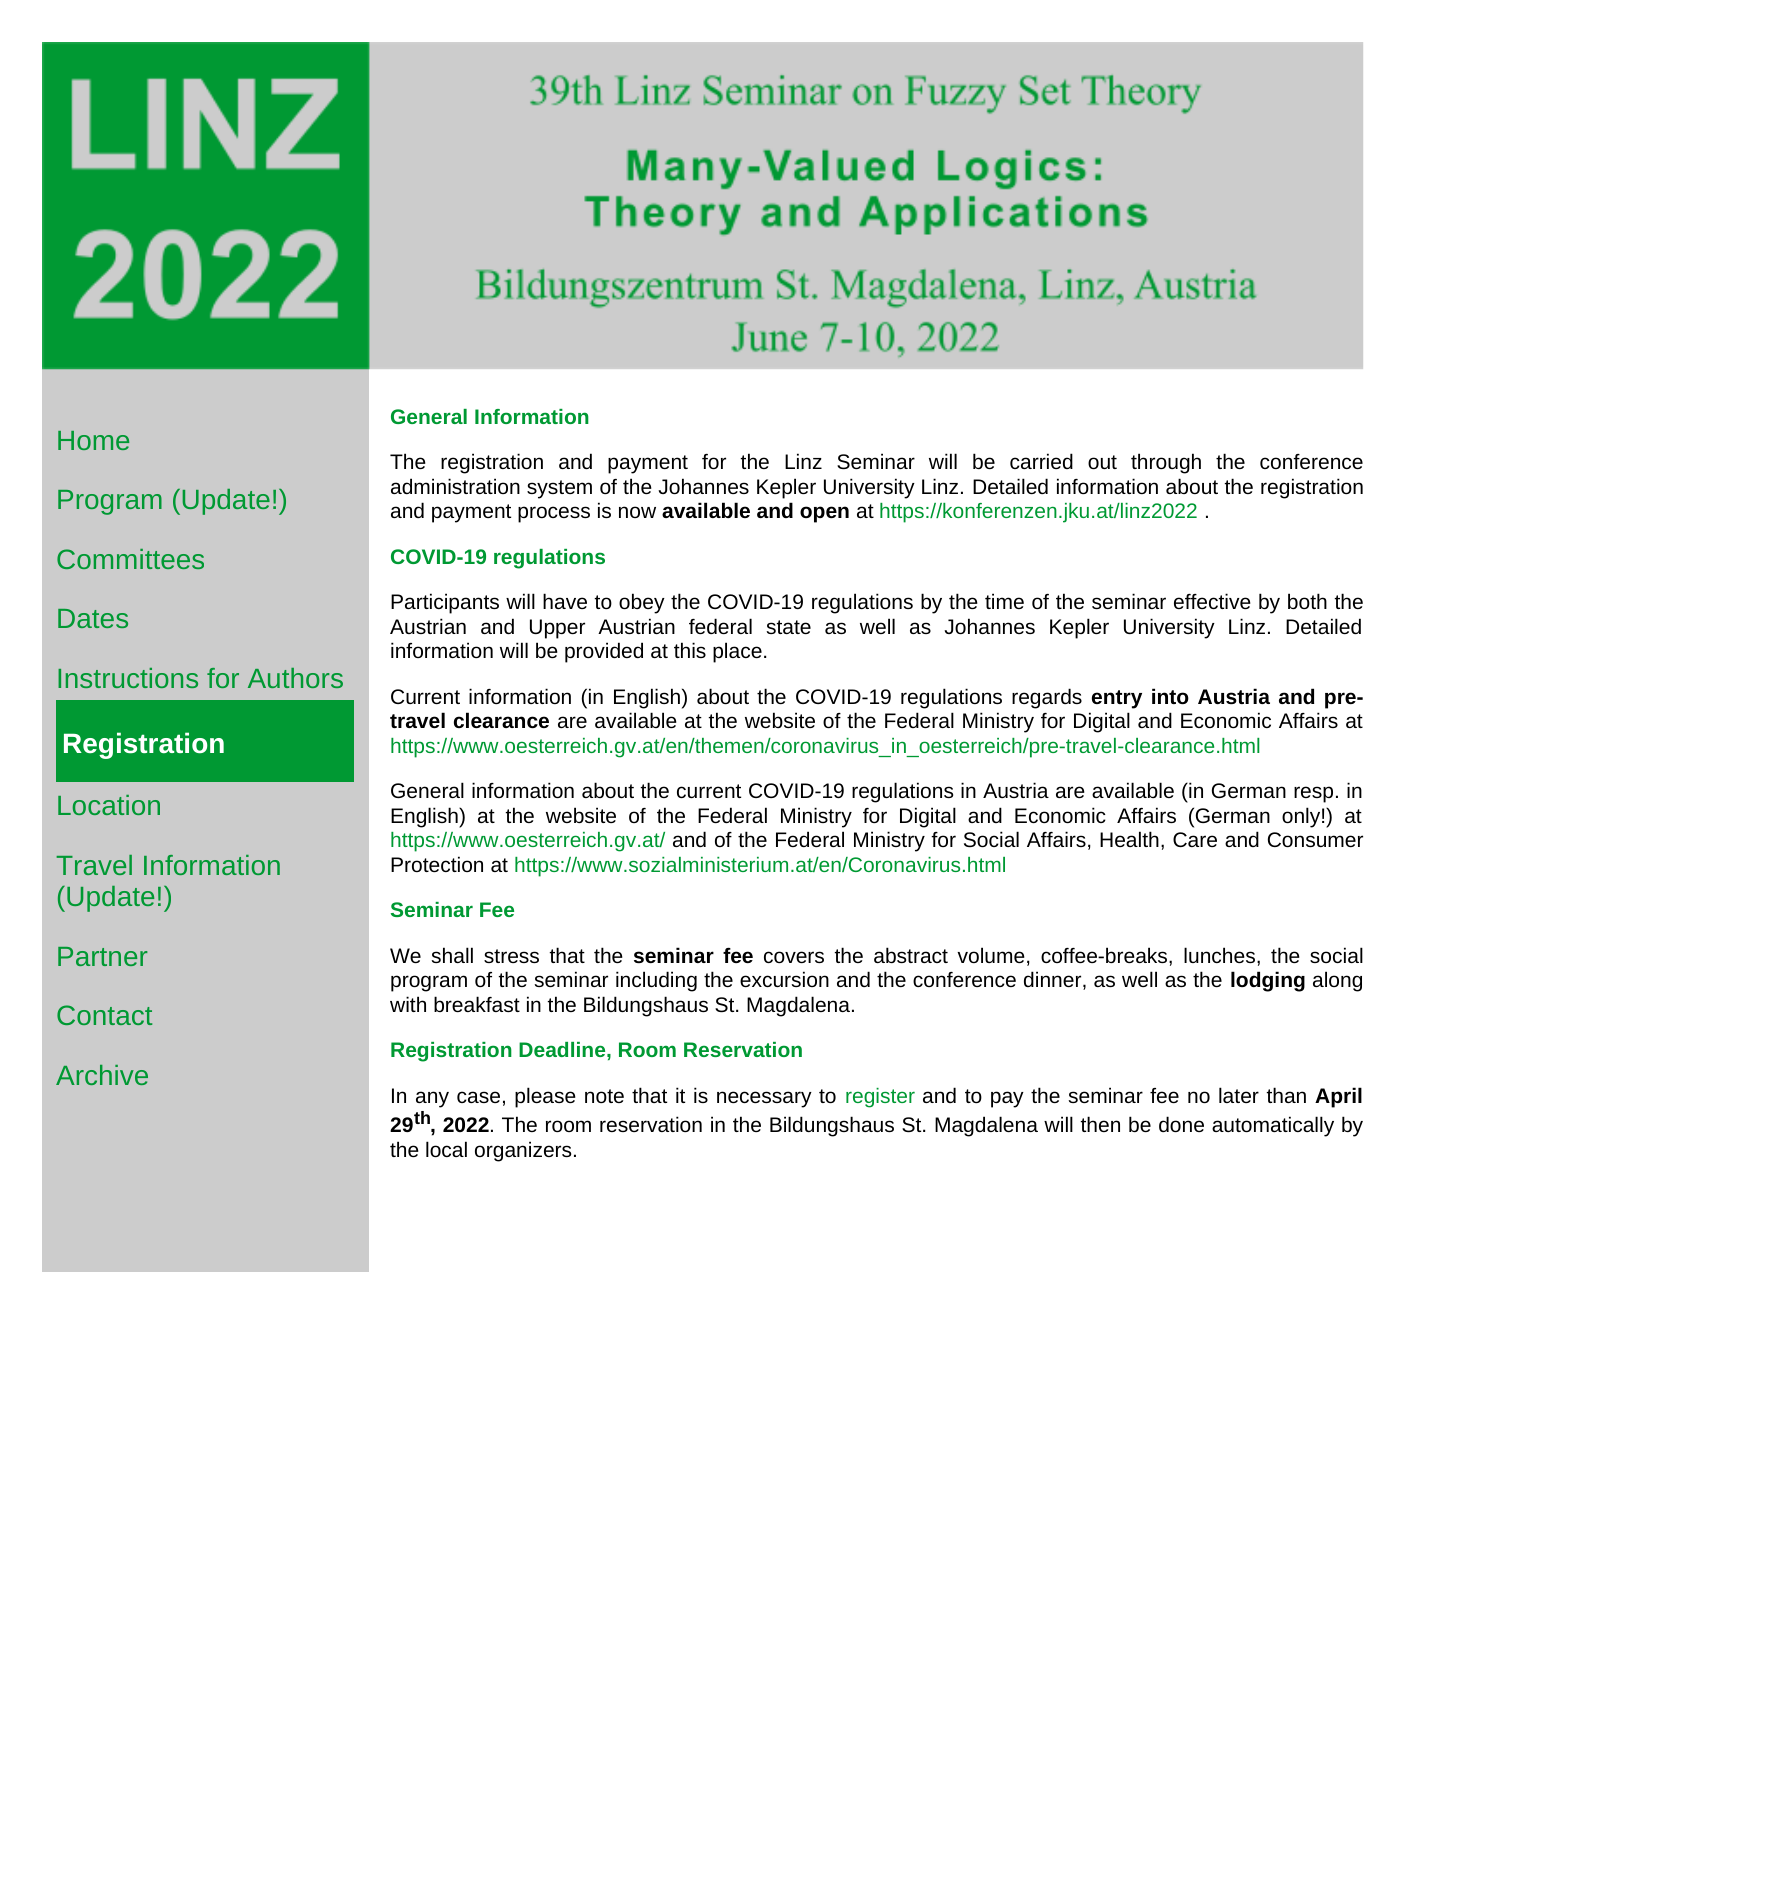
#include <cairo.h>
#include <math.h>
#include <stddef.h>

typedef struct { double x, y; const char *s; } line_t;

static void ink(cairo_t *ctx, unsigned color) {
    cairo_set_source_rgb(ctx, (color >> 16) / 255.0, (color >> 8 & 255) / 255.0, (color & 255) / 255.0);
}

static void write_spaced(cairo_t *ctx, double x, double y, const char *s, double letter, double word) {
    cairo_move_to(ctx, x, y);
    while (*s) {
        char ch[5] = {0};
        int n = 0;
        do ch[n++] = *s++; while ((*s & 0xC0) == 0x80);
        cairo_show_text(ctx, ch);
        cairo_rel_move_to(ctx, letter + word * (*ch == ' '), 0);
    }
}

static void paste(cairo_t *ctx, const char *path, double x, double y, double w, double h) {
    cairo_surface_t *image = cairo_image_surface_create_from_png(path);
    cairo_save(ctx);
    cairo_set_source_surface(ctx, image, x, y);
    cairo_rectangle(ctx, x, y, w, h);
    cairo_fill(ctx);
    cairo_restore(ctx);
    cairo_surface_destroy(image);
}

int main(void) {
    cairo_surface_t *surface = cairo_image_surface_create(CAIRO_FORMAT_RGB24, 1776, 1894);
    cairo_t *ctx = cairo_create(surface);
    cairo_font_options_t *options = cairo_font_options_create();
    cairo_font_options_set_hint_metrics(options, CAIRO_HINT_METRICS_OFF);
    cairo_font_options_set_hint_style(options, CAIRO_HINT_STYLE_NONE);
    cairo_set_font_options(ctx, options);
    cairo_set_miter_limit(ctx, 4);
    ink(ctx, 0xFFFFFF);
    cairo_paint(ctx);
    ink(ctx, 0xCCCCCC);
    cairo_rectangle(ctx, 42, 369, 327, 903);
    cairo_fill(ctx);
    paste(ctx, "media/1.png", 42, 42, 1322, 328);
    cairo_select_font_face(ctx, "Liberation Sans", CAIRO_FONT_SLANT_NORMAL, CAIRO_FONT_WEIGHT_NORMAL);
    cairo_set_font_size(ctx, 28);
    ink(ctx, 0x009933);
    {
        static const line_t items[] = {
            {56, 450, "Home"},
            {56, 509, "Program (Update!)"},
            {56, 569, "Committees"},
            {56, 628, "Dates"},
            {56, 688, "Instructions for Authors"},
        };
        for (size_t i = 0; i < sizeof items / sizeof *items; i++) {
            cairo_move_to(ctx, items[i].x, items[i].y);
            cairo_show_text(ctx, items[i].s);
        }
    }
    cairo_rectangle(ctx, 56, 700, 298, 82);
    cairo_fill(ctx);
    cairo_select_font_face(ctx, "Liberation Sans", CAIRO_FONT_SLANT_NORMAL, CAIRO_FONT_WEIGHT_BOLD);
    ink(ctx, 0xFFFFFF);
    cairo_move_to(ctx, 62, 753);
    cairo_show_text(ctx, "Registration");
    cairo_select_font_face(ctx, "Liberation Sans", CAIRO_FONT_SLANT_NORMAL, CAIRO_FONT_WEIGHT_NORMAL);
    ink(ctx, 0x009933);
    {
        static const line_t items[] = {
            {56, 815, "Location"},
            {56, 875, "Travel Information"},
            {56, 906, "(Update!)"},
            {56, 966, "Partner"},
            {56, 1025, "Contact"},
            {56, 1085, "Archive"},
        };
        for (size_t i = 0; i < sizeof items / sizeof *items; i++) {
            cairo_move_to(ctx, items[i].x, items[i].y);
            cairo_show_text(ctx, items[i].s);
        }
    }
    cairo_select_font_face(ctx, "Liberation Sans", CAIRO_FONT_SLANT_NORMAL, CAIRO_FONT_WEIGHT_BOLD);
    cairo_set_font_size(ctx, 21);
    cairo_move_to(ctx, 390, 424);
    cairo_show_text(ctx, "General Information");
    cairo_select_font_face(ctx, "Liberation Sans", CAIRO_FONT_SLANT_NORMAL, CAIRO_FONT_WEIGHT_NORMAL);
    ink(ctx, 0x000000);
    write_spaced(ctx, 390, 469, "The registration and payment for the Linz Seminar will be carried out through the conference", 0, 8.25);
    write_spaced(ctx, 390, 494, "administration system of the Johannes Kepler University Linz.", 0, 0.25);
    write_spaced(ctx, 972, 494, "Detailed information about the registration", 0, 0.5);
    cairo_move_to(ctx, 390, 518);
    cairo_show_text(ctx, "and payment process is now");
    cairo_select_font_face(ctx, "Liberation Sans", CAIRO_FONT_SLANT_NORMAL, CAIRO_FONT_WEIGHT_BOLD);
    cairo_move_to(ctx, 662, 518);
    cairo_show_text(ctx, "available and open");
    cairo_select_font_face(ctx, "Liberation Sans", CAIRO_FONT_SLANT_NORMAL, CAIRO_FONT_WEIGHT_NORMAL);
    cairo_move_to(ctx, 856, 518);
    cairo_show_text(ctx, "at");
    ink(ctx, 0x009933);
    cairo_move_to(ctx, 879, 518);
    cairo_show_text(ctx, "https://konferenzen.jku.at/linz2022");
    ink(ctx, 0x000000);
    cairo_move_to(ctx, 1204, 518);
    cairo_show_text(ctx, ".");
    cairo_select_font_face(ctx, "Liberation Sans", CAIRO_FONT_SLANT_NORMAL, CAIRO_FONT_WEIGHT_BOLD);
    ink(ctx, 0x009933);
    cairo_move_to(ctx, 390, 564);
    cairo_show_text(ctx, "COVID-19 regulations");
    cairo_select_font_face(ctx, "Liberation Sans", CAIRO_FONT_SLANT_NORMAL, CAIRO_FONT_WEIGHT_NORMAL);
    ink(ctx, 0x000000);
    write_spaced(ctx, 390, 609, "Participants will have to obey the COVID-19 regulations by the time of the seminar effective by both the", 0, 0.9);
    write_spaced(ctx, 390, 634, "Austrian and Upper Austrian federal state as well as Johannes Kepler University Linz. Detailed", 0, 7.25);
    cairo_move_to(ctx, 390, 658);
    cairo_show_text(ctx, "information will be provided at this place.");
    write_spaced(ctx, 390, 704, "Current information (in English) about the COVID-19 regulations regards", 0, 2.5);
    cairo_select_font_face(ctx, "Liberation Sans", CAIRO_FONT_SLANT_NORMAL, CAIRO_FONT_WEIGHT_BOLD);
    write_spaced(ctx, 1091, 704, "entry into Austria and pre-", 0, 2.5);
    write_spaced(ctx, 390, 728, "travel clearance", 0, 1);
    cairo_select_font_face(ctx, "Liberation Sans", CAIRO_FONT_SLANT_NORMAL, CAIRO_FONT_WEIGHT_NORMAL);
    write_spaced(ctx, 557, 728, "are available at the website of the Federal Ministry for Digital and Economic Affairs at", 0, 1.1);
    ink(ctx, 0x009933);
    cairo_move_to(ctx, 390, 753);
    cairo_show_text(ctx, "https://www.oesterreich.gv.at/en/themen/coronavirus_in_oesterreich/pre-travel-clearance.html");
    ink(ctx, 0x000000);
    write_spaced(ctx, 390, 798, "General information about the current COVID-19 regulations in Austria are available (in German resp. in", 0, 0.6);
    write_spaced(ctx, 390, 823, "English) at the website of the Federal Ministry for Digital and Economic Affairs (German only!) at", 0, 5.25);
    ink(ctx, 0x009933);
    cairo_move_to(ctx, 390, 847);
    cairo_show_text(ctx, "https://www.oesterreich.gv.at/");
    ink(ctx, 0x000000);
    write_spaced(ctx, 672, 847, "and of the Federal Ministry for Social Affairs, Health, Care and Consumer", 0, 1);
    cairo_move_to(ctx, 390, 872);
    cairo_show_text(ctx, "Protection at");
    ink(ctx, 0x009933);
    cairo_move_to(ctx, 514, 872);
    cairo_show_text(ctx, "https://www.sozialministerium.at/en/Coronavirus.html");
    cairo_select_font_face(ctx, "Liberation Sans", CAIRO_FONT_SLANT_NORMAL, CAIRO_FONT_WEIGHT_BOLD);
    cairo_move_to(ctx, 390, 917);
    cairo_show_text(ctx, "Seminar Fee");
    cairo_select_font_face(ctx, "Liberation Sans", CAIRO_FONT_SLANT_NORMAL, CAIRO_FONT_WEIGHT_NORMAL);
    ink(ctx, 0x000000);
    write_spaced(ctx, 390, 963, "We shall stress that the", 0, 3.75);
    cairo_select_font_face(ctx, "Liberation Sans", CAIRO_FONT_SLANT_NORMAL, CAIRO_FONT_WEIGHT_BOLD);
    write_spaced(ctx, 633, 963, "seminar fee", 0, 3.75);
    cairo_select_font_face(ctx, "Liberation Sans", CAIRO_FONT_SLANT_NORMAL, CAIRO_FONT_WEIGHT_NORMAL);
    write_spaced(ctx, 763, 963, "covers the abstract volume, coffee-breaks, lunches, the social", 0, 3.75);
    write_spaced(ctx, 390, 987, "program of the seminar including the excursion and the conference dinner, as well as the", 0, 0.5);
    cairo_select_font_face(ctx, "Liberation Sans", CAIRO_FONT_SLANT_NORMAL, CAIRO_FONT_WEIGHT_BOLD);
    cairo_move_to(ctx, 1230, 987);
    cairo_show_text(ctx, "lodging");
    cairo_select_font_face(ctx, "Liberation Sans", CAIRO_FONT_SLANT_NORMAL, CAIRO_FONT_WEIGHT_NORMAL);
    cairo_move_to(ctx, 1312, 987);
    cairo_show_text(ctx, "along");
    cairo_move_to(ctx, 390, 1012);
    cairo_show_text(ctx, "with breakfast in the Bildungshaus St. Magdalena.");
    cairo_select_font_face(ctx, "Liberation Sans", CAIRO_FONT_SLANT_NORMAL, CAIRO_FONT_WEIGHT_BOLD);
    ink(ctx, 0x009933);
    cairo_move_to(ctx, 390, 1057);
    cairo_show_text(ctx, "Registration Deadline, Room Reservation");
    cairo_select_font_face(ctx, "Liberation Sans", CAIRO_FONT_SLANT_NORMAL, CAIRO_FONT_WEIGHT_NORMAL);
    ink(ctx, 0x000000);
    write_spaced(ctx, 390, 1103, "In any case, please note that it is necessary to", 0, 1.75);
    ink(ctx, 0x009933);
    cairo_move_to(ctx, 845, 1103);
    cairo_show_text(ctx, "register");
    ink(ctx, 0x000000);
    write_spaced(ctx, 922, 1103, "and to pay the seminar fee no later than", 0, 1.75);
    cairo_select_font_face(ctx, "Liberation Sans", CAIRO_FONT_SLANT_NORMAL, CAIRO_FONT_WEIGHT_BOLD);
    cairo_move_to(ctx, 1315, 1103);
    cairo_show_text(ctx, "April");
    cairo_move_to(ctx, 390, 1132);
    cairo_show_text(ctx, "29");
    cairo_set_font_size(ctx, 18);
    cairo_move_to(ctx, 414, 1124);
    cairo_show_text(ctx, "th");
    cairo_set_font_size(ctx, 21);
    write_spaced(ctx, 430, 1132, ", 2022", 0, 1);
    cairo_select_font_face(ctx, "Liberation Sans", CAIRO_FONT_SLANT_NORMAL, CAIRO_FONT_WEIGHT_NORMAL);
    write_spaced(ctx, 489, 1132, ". The room reservation in the Bildungshaus St. Magdalena will then be done automatically by", 0, 0.9);
    cairo_move_to(ctx, 390, 1157);
    cairo_show_text(ctx, "the local organizers.");
    cairo_surface_write_to_png(surface, "image.png");
    cairo_font_options_destroy(options);
    cairo_destroy(ctx);
    cairo_surface_destroy(surface);
    return 0;
}
